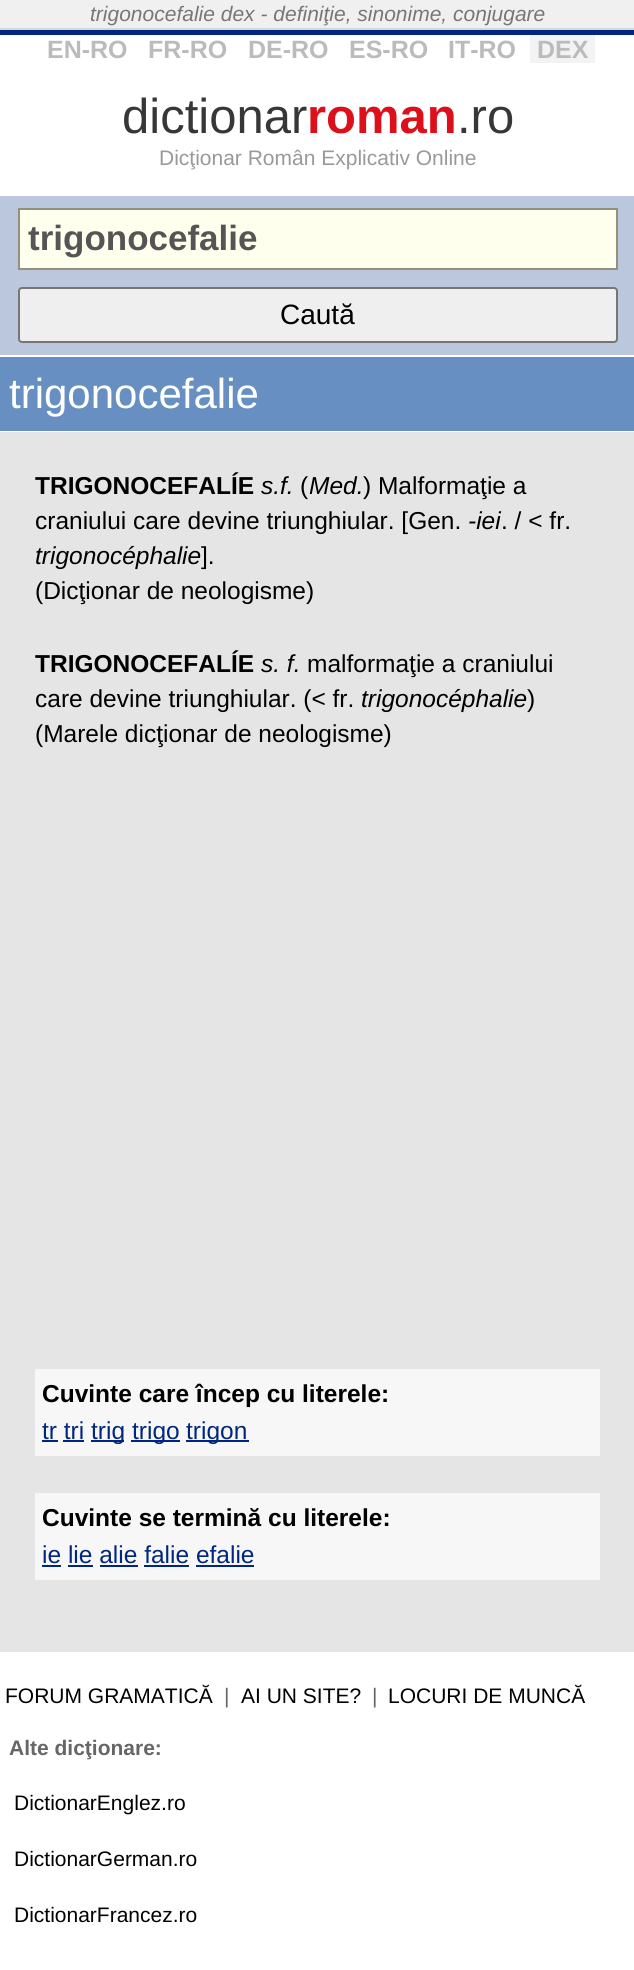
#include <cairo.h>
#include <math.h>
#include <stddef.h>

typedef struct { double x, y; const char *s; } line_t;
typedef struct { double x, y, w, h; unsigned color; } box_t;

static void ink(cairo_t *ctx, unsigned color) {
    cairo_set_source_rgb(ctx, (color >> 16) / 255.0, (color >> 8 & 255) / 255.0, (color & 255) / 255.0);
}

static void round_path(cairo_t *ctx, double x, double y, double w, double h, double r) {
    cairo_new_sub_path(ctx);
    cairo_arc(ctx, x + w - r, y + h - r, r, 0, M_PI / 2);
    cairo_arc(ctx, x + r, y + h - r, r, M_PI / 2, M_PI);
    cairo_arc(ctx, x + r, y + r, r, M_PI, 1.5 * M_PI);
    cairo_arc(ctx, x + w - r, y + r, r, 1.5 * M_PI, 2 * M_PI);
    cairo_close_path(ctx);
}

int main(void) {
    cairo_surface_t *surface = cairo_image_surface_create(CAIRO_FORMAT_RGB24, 634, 1970);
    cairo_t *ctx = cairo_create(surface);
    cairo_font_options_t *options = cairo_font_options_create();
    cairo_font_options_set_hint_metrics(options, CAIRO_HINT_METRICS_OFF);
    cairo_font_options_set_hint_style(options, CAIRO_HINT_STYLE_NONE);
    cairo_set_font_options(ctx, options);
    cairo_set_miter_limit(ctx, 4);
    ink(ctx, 0xFFFFFF);
    cairo_paint(ctx);
    ink(ctx, 0xF0F0F0);
    cairo_rectangle(ctx, 0, 0, 634, 28);
    cairo_fill(ctx);
    ink(ctx, 0xD6D6D6);
    cairo_rectangle(ctx, 0, 28, 634, 2);
    cairo_fill(ctx);
    cairo_select_font_face(ctx, "Liberation Sans", CAIRO_FONT_SLANT_ITALIC, CAIRO_FONT_WEIGHT_NORMAL);
    cairo_set_font_size(ctx, 21);
    ink(ctx, 0x777777);
    cairo_move_to(ctx, 90, 21);
    cairo_show_text(ctx, "trigonocefalie dex - definiţie, sinonime, conjugare");
    ink(ctx, 0x01267F);
    cairo_rectangle(ctx, 0, 30, 634, 5);
    cairo_fill(ctx);
    cairo_select_font_face(ctx, "Liberation Sans", CAIRO_FONT_SLANT_NORMAL, CAIRO_FONT_WEIGHT_BOLD);
    cairo_set_font_size(ctx, 25);
    ink(ctx, 0xBBBBBB);
    {
        static const line_t items[] = {
            {47, 58, "EN-RO"},
            {148, 58, "FR-RO"},
            {248, 58, "DE-RO"},
            {349, 58, "ES-RO"},
            {448, 58, "IT-RO"},
        };
        for (size_t i = 0; i < sizeof items / sizeof *items; i++) {
            cairo_move_to(ctx, items[i].x, items[i].y);
            cairo_show_text(ctx, items[i].s);
        }
    }
    ink(ctx, 0xF3F3F3);
    cairo_rectangle(ctx, 530, 35, 65, 28);
    cairo_fill(ctx);
    ink(ctx, 0xBBBBBB);
    cairo_move_to(ctx, 537, 58);
    cairo_show_text(ctx, "DEX");
    cairo_select_font_face(ctx, "Liberation Sans", CAIRO_FONT_SLANT_NORMAL, CAIRO_FONT_WEIGHT_NORMAL);
    cairo_set_font_size(ctx, 49);
    ink(ctx, 0x373737);
    cairo_move_to(ctx, 122, 133);
    cairo_show_text(ctx, "dictionar");
    cairo_select_font_face(ctx, "Liberation Sans", CAIRO_FONT_SLANT_NORMAL, CAIRO_FONT_WEIGHT_BOLD);
    ink(ctx, 0xDD0F1B);
    cairo_move_to(ctx, 307, 133);
    cairo_show_text(ctx, "roman");
    cairo_select_font_face(ctx, "Liberation Sans", CAIRO_FONT_SLANT_NORMAL, CAIRO_FONT_WEIGHT_NORMAL);
    ink(ctx, 0x373737);
    cairo_move_to(ctx, 457, 133);
    cairo_show_text(ctx, ".ro");
    cairo_set_font_size(ctx, 21);
    ink(ctx, 0x999999);
    cairo_move_to(ctx, 159, 165);
    cairo_show_text(ctx, "Dicţionar Român Explicativ Online");
    ink(ctx, 0xBAC7DC);
    cairo_rectangle(ctx, 0, 196, 634, 159);
    cairo_fill(ctx);
    ink(ctx, 0xFFFFEE);
    cairo_rectangle(ctx, 19, 209, 598, 60);
    cairo_fill_preserve(ctx);
    ink(ctx, 0x92917C);
    cairo_stroke(ctx);
    cairo_select_font_face(ctx, "Liberation Sans", CAIRO_FONT_SLANT_NORMAL, CAIRO_FONT_WEIGHT_BOLD);
    cairo_set_font_size(ctx, 35);
    ink(ctx, 0x555555);
    cairo_move_to(ctx, 28, 250);
    cairo_show_text(ctx, "trigonocefalie");
    ink(ctx, 0xEFEFEF);
    round_path(ctx, 19, 288, 598, 54, 3);
    cairo_fill_preserve(ctx);
    ink(ctx, 0x767676);
    cairo_stroke(ctx);
    cairo_select_font_face(ctx, "Liberation Sans", CAIRO_FONT_SLANT_NORMAL, CAIRO_FONT_WEIGHT_NORMAL);
    cairo_set_font_size(ctx, 28);
    ink(ctx, 0x000000);
    cairo_move_to(ctx, 280, 324);
    cairo_show_text(ctx, "Caută");
    ink(ctx, 0x678FC2);
    cairo_rectangle(ctx, 0, 357, 634, 74);
    cairo_fill(ctx);
    cairo_set_font_size(ctx, 42);
    ink(ctx, 0xFFFFFF);
    cairo_move_to(ctx, 9, 408);
    cairo_show_text(ctx, "trigonocefalie");
    ink(ctx, 0xE5E5E5);
    cairo_rectangle(ctx, 0, 432, 634, 1220);
    cairo_fill(ctx);
    cairo_select_font_face(ctx, "Liberation Sans", CAIRO_FONT_SLANT_NORMAL, CAIRO_FONT_WEIGHT_BOLD);
    cairo_set_font_size(ctx, 24.5);
    ink(ctx, 0x000000);
    cairo_move_to(ctx, 35, 494);
    cairo_show_text(ctx, "TRIGONOCEFALÍE");
    cairo_select_font_face(ctx, "Liberation Sans", CAIRO_FONT_SLANT_ITALIC, CAIRO_FONT_WEIGHT_NORMAL);
    cairo_move_to(ctx, 261, 494);
    cairo_show_text(ctx, "s.f.");
    cairo_select_font_face(ctx, "Liberation Sans", CAIRO_FONT_SLANT_NORMAL, CAIRO_FONT_WEIGHT_NORMAL);
    cairo_move_to(ctx, 300, 494);
    cairo_show_text(ctx, "(");
    cairo_select_font_face(ctx, "Liberation Sans", CAIRO_FONT_SLANT_ITALIC, CAIRO_FONT_WEIGHT_NORMAL);
    cairo_move_to(ctx, 309, 494);
    cairo_show_text(ctx, "Med.");
    cairo_select_font_face(ctx, "Liberation Sans", CAIRO_FONT_SLANT_NORMAL, CAIRO_FONT_WEIGHT_NORMAL);
    cairo_move_to(ctx, 363, 494);
    cairo_show_text(ctx, ") Malformaţie a");
    cairo_move_to(ctx, 35, 529);
    cairo_show_text(ctx, "craniului care devine triunghiular. [Gen.");
    cairo_select_font_face(ctx, "Liberation Sans", CAIRO_FONT_SLANT_ITALIC, CAIRO_FONT_WEIGHT_NORMAL);
    cairo_move_to(ctx, 468, 529);
    cairo_show_text(ctx, "-iei");
    cairo_select_font_face(ctx, "Liberation Sans", CAIRO_FONT_SLANT_NORMAL, CAIRO_FONT_WEIGHT_NORMAL);
    cairo_move_to(ctx, 501, 529);
    cairo_show_text(ctx, ". / < fr.");
    cairo_select_font_face(ctx, "Liberation Sans", CAIRO_FONT_SLANT_ITALIC, CAIRO_FONT_WEIGHT_NORMAL);
    cairo_move_to(ctx, 35, 564);
    cairo_show_text(ctx, "trigonocéphalie");
    cairo_select_font_face(ctx, "Liberation Sans", CAIRO_FONT_SLANT_NORMAL, CAIRO_FONT_WEIGHT_NORMAL);
    cairo_move_to(ctx, 201, 564);
    cairo_show_text(ctx, "].");
    cairo_move_to(ctx, 35, 599);
    cairo_show_text(ctx, "(Dicţionar de neologisme)");
    cairo_select_font_face(ctx, "Liberation Sans", CAIRO_FONT_SLANT_NORMAL, CAIRO_FONT_WEIGHT_BOLD);
    cairo_move_to(ctx, 35, 672);
    cairo_show_text(ctx, "TRIGONOCEFALÍE");
    cairo_select_font_face(ctx, "Liberation Sans", CAIRO_FONT_SLANT_ITALIC, CAIRO_FONT_WEIGHT_NORMAL);
    cairo_move_to(ctx, 261, 672);
    cairo_show_text(ctx, "s. f.");
    cairo_select_font_face(ctx, "Liberation Sans", CAIRO_FONT_SLANT_NORMAL, CAIRO_FONT_WEIGHT_NORMAL);
    cairo_move_to(ctx, 307, 672);
    cairo_show_text(ctx, "malformaţie a craniului");
    cairo_move_to(ctx, 35, 707);
    cairo_show_text(ctx, "care devine triunghiular. (< fr.");
    cairo_select_font_face(ctx, "Liberation Sans", CAIRO_FONT_SLANT_ITALIC, CAIRO_FONT_WEIGHT_NORMAL);
    cairo_move_to(ctx, 361, 707);
    cairo_show_text(ctx, "trigonocéphalie");
    cairo_select_font_face(ctx, "Liberation Sans", CAIRO_FONT_SLANT_NORMAL, CAIRO_FONT_WEIGHT_NORMAL);
    cairo_move_to(ctx, 527, 707);
    cairo_show_text(ctx, ")");
    cairo_move_to(ctx, 35, 742);
    cairo_show_text(ctx, "(Marele dicţionar de neologisme)");
    ink(ctx, 0xF7F7F7);
    cairo_rectangle(ctx, 35, 1369, 565, 87);
    cairo_fill(ctx);
    cairo_select_font_face(ctx, "Liberation Sans", CAIRO_FONT_SLANT_NORMAL, CAIRO_FONT_WEIGHT_BOLD);
    ink(ctx, 0x000000);
    cairo_move_to(ctx, 42, 1402);
    cairo_show_text(ctx, "Cuvinte care încep cu literele:");
    cairo_select_font_face(ctx, "Liberation Sans", CAIRO_FONT_SLANT_NORMAL, CAIRO_FONT_WEIGHT_NORMAL);
    ink(ctx, 0x01267F);
    cairo_move_to(ctx, 42, 1439);
    cairo_show_text(ctx, "tr tri");
    cairo_rectangle(ctx, 42, 1440, 16, 2);
    cairo_fill(ctx);
    cairo_rectangle(ctx, 91, 1440, 33, 2);
    cairo_fill(ctx);
    cairo_move_to(ctx, 91, 1439);
    cairo_show_text(ctx, "trig");
    cairo_rectangle(ctx, 131, 1440, 49, 2);
    cairo_fill(ctx);
    cairo_move_to(ctx, 132, 1439);
    cairo_show_text(ctx, "trigo");
    cairo_rectangle(ctx, 186, 1440, 63, 2);
    cairo_fill(ctx);
    cairo_move_to(ctx, 186, 1439);
    cairo_show_text(ctx, "trigon");
    cairo_rectangle(ctx, 63, 1440, 21, 2);
    cairo_fill(ctx);
    ink(ctx, 0xF7F7F7);
    cairo_rectangle(ctx, 35, 1493, 565, 87);
    cairo_fill(ctx);
    cairo_select_font_face(ctx, "Liberation Sans", CAIRO_FONT_SLANT_NORMAL, CAIRO_FONT_WEIGHT_BOLD);
    ink(ctx, 0x000000);
    cairo_move_to(ctx, 42, 1526);
    cairo_show_text(ctx, "Cuvinte se termină cu literele:");
    cairo_select_font_face(ctx, "Liberation Sans", CAIRO_FONT_SLANT_NORMAL, CAIRO_FONT_WEIGHT_NORMAL);
    ink(ctx, 0x01267F);
    cairo_move_to(ctx, 42, 1563);
    cairo_show_text(ctx, "ie lie alie falie efalie");
    {
        static const box_t items[] = {
            {42, 1565, 19, 2, 0x01267F},
            {68, 1565, 25, 2, 0x01267F},
            {100, 1565, 38, 2, 0x01267F},
            {144, 1565, 45, 2, 0x01267F},
            {196, 1565, 58, 2, 0x01267F},
        };
        for (size_t i = 0; i < sizeof items / sizeof *items; i++) {
            ink(ctx, items[i].color);
            cairo_rectangle(ctx, items[i].x, items[i].y, items[i].w, items[i].h);
            cairo_fill(ctx);
        }
    }
    cairo_set_font_size(ctx, 21);
    ink(ctx, 0x000000);
    cairo_move_to(ctx, 5, 1703);
    cairo_show_text(ctx, "FORUM GRAMATICĂ");
    ink(ctx, 0x666666);
    cairo_move_to(ctx, 224, 1703);
    cairo_show_text(ctx, "|");
    ink(ctx, 0x000000);
    cairo_move_to(ctx, 241, 1703);
    cairo_show_text(ctx, "AI UN SITE?");
    ink(ctx, 0x666666);
    cairo_move_to(ctx, 372, 1703);
    cairo_show_text(ctx, "|");
    ink(ctx, 0x000000);
    cairo_move_to(ctx, 388, 1703);
    cairo_show_text(ctx, "LOCURI DE MUNCĂ");
    cairo_select_font_face(ctx, "Liberation Sans", CAIRO_FONT_SLANT_NORMAL, CAIRO_FONT_WEIGHT_BOLD);
    ink(ctx, 0x666666);
    cairo_move_to(ctx, 9, 1755);
    cairo_show_text(ctx, "Alte dicţionare:");
    cairo_select_font_face(ctx, "Liberation Sans", CAIRO_FONT_SLANT_NORMAL, CAIRO_FONT_WEIGHT_NORMAL);
    ink(ctx, 0x000000);
    {
        static const line_t items[] = {
            {14, 1810, "DictionarEnglez.ro"},
            {14, 1866, "DictionarGerman.ro"},
            {14, 1922, "DictionarFrancez.ro"},
        };
        for (size_t i = 0; i < sizeof items / sizeof *items; i++) {
            cairo_move_to(ctx, items[i].x, items[i].y);
            cairo_show_text(ctx, items[i].s);
        }
    }
    cairo_surface_write_to_png(surface, "image.png");
    cairo_font_options_destroy(options);
    cairo_destroy(ctx);
    cairo_surface_destroy(surface);
    return 0;
}
